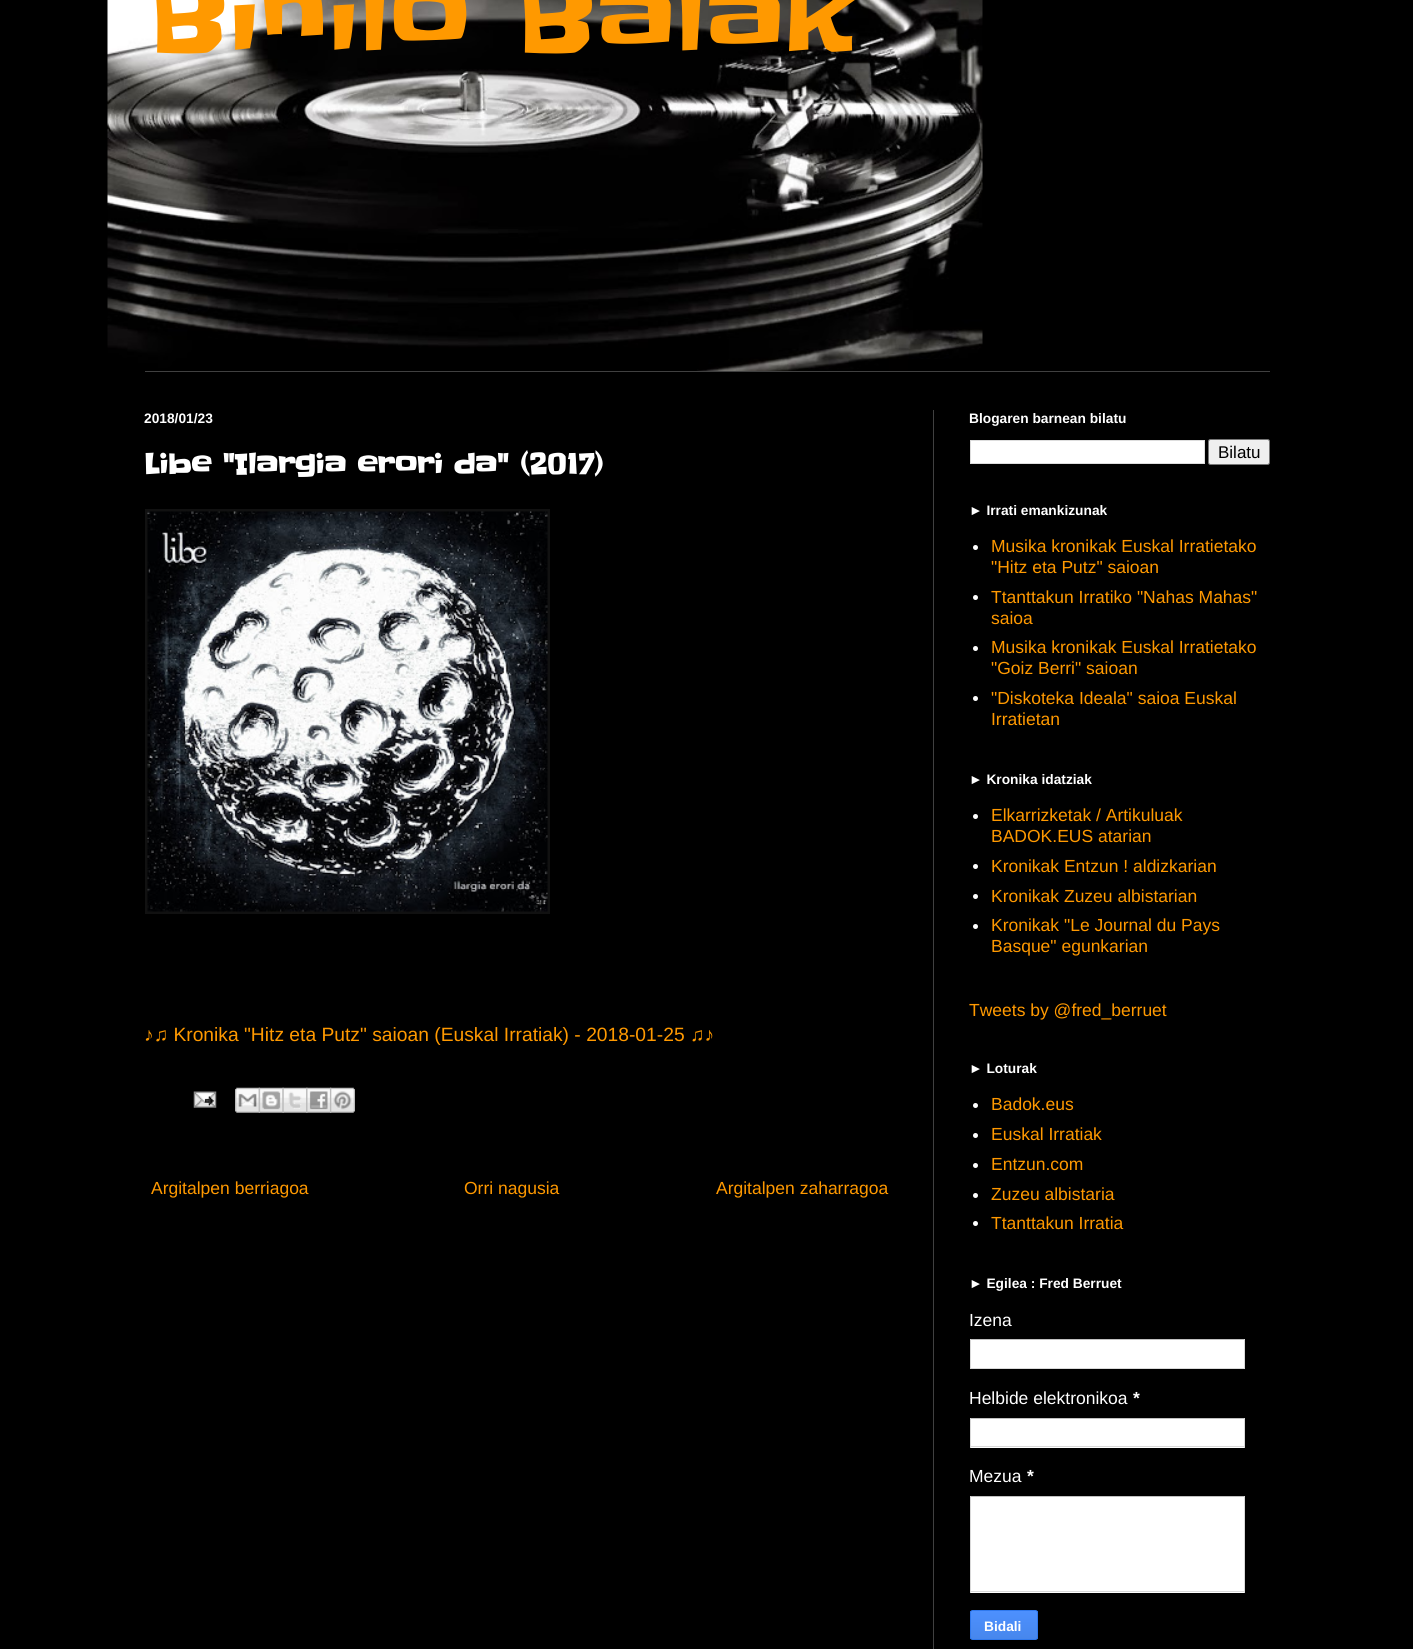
#include <cairo.h>
#include <math.h>
#include <stddef.h>

typedef struct { double x, y; const char *s; } line_t;
typedef struct { double x, y, w, h; unsigned color; } box_t;

static void ink(cairo_t *ctx, unsigned color) {
    cairo_set_source_rgb(ctx, (color >> 16) / 255.0, (color >> 8 & 255) / 255.0, (color & 255) / 255.0);
}

static void round_path(cairo_t *ctx, double x, double y, double w, double h, double r) {
    cairo_new_sub_path(ctx);
    cairo_arc(ctx, x + w - r, y + h - r, r, 0, M_PI / 2);
    cairo_arc(ctx, x + r, y + h - r, r, M_PI / 2, M_PI);
    cairo_arc(ctx, x + r, y + r, r, M_PI, 1.5 * M_PI);
    cairo_arc(ctx, x + w - r, y + r, r, 1.5 * M_PI, 2 * M_PI);
    cairo_close_path(ctx);
}

static void paste(cairo_t *ctx, const char *path, double x, double y, double w, double h) {
    cairo_surface_t *image = cairo_image_surface_create_from_png(path);
    cairo_save(ctx);
    cairo_set_source_surface(ctx, image, x, y);
    cairo_rectangle(ctx, x, y, w, h);
    cairo_fill(ctx);
    cairo_restore(ctx);
    cairo_surface_destroy(image);
}

int main(void) {
    cairo_surface_t *surface = cairo_image_surface_create(CAIRO_FORMAT_RGB24, 1413, 1649);
    cairo_t *ctx = cairo_create(surface);
    cairo_font_options_t *options = cairo_font_options_create();
    cairo_font_options_set_hint_metrics(options, CAIRO_HINT_METRICS_OFF);
    cairo_font_options_set_hint_style(options, CAIRO_HINT_STYLE_NONE);
    cairo_set_font_options(ctx, options);
    cairo_set_miter_limit(ctx, 4);
    cairo_pattern_t *gradient;
    ink(ctx, 0x000000);
    cairo_paint(ctx);
    paste(ctx, "media/1.png", 107, 0, 876, 372);
    cairo_select_font_face(ctx, "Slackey", CAIRO_FONT_SLANT_NORMAL, CAIRO_FONT_WEIGHT_NORMAL);
    cairo_set_font_size(ctx, 100);
    ink(ctx, 0xFF9900);
    cairo_move_to(ctx, 144, 53);
    cairo_show_text(ctx, "Binilo Balak");
    ink(ctx, 0x404040);
    cairo_rectangle(ctx, 145, 371, 1125, 1);
    cairo_fill(ctx);
    cairo_rectangle(ctx, 933, 410, 1, 1239);
    cairo_fill(ctx);
    cairo_select_font_face(ctx, "Liberation Sans", CAIRO_FONT_SLANT_NORMAL, CAIRO_FONT_WEIGHT_BOLD);
    cairo_set_font_size(ctx, 13.75);
    ink(ctx, 0xFFFFFF);
    cairo_move_to(ctx, 144, 423);
    cairo_show_text(ctx, "2018/01/23");
    cairo_select_font_face(ctx, "Slackey", CAIRO_FONT_SLANT_NORMAL, CAIRO_FONT_WEIGHT_BOLD);
    cairo_set_font_size(ctx, 27.5);
    cairo_move_to(ctx, 144, 474);
    cairo_show_text(ctx, "Libe \"Ilargia erori da\" (2017)");
    ink(ctx, 0x111111);
    cairo_rectangle(ctx, 145, 509, 405, 405);
    cairo_fill(ctx);
    paste(ctx, "media/2.png", 147, 511, 401, 401);
    cairo_select_font_face(ctx, "Liberation Sans", CAIRO_FONT_SLANT_NORMAL, CAIRO_FONT_WEIGHT_NORMAL);
    cairo_set_font_size(ctx, 19.25);
    ink(ctx, 0xFF9900);
    cairo_move_to(ctx, 144, 1041);
    cairo_show_text(ctx, "♪♫ Kronika \"Hitz eta Putz\" saioan (Euskal Irratiak) - 2018-01-25 ♫♪");
    paste(ctx, "media/3.png", 193, 1091, 24, 17);
    paste(ctx, "media/4.png", 235, 1087, 25, 26);
    paste(ctx, "media/5.png", 258, 1087, 26, 26);
    paste(ctx, "media/6.png", 282, 1087, 26, 26);
    paste(ctx, "media/7.png", 306, 1087, 26, 26);
    paste(ctx, "media/8.png", 330, 1087, 25, 26);
    cairo_set_font_size(ctx, 17.5);
    {
        static const line_t items[] = {
            {151, 1194, "Argitalpen berriagoa"},
            {464, 1194, "Orri nagusia"},
            {716, 1194, "Argitalpen zaharragoa"},
        };
        for (size_t i = 0; i < sizeof items / sizeof *items; i++) {
            cairo_move_to(ctx, items[i].x, items[i].y);
            cairo_show_text(ctx, items[i].s);
        }
    }
    cairo_select_font_face(ctx, "Liberation Sans", CAIRO_FONT_SLANT_NORMAL, CAIRO_FONT_WEIGHT_BOLD);
    cairo_set_font_size(ctx, 13.75);
    ink(ctx, 0xFFFFFF);
    cairo_move_to(ctx, 969, 423);
    cairo_show_text(ctx, "Blogaren barnean bilatu");
    cairo_rectangle(ctx, 970.5, 440.5, 234, 23);
    cairo_fill_preserve(ctx);
    ink(ctx, 0xDDDDDD);
    cairo_set_line_width(ctx, 1);
    cairo_stroke(ctx);
    ink(ctx, 0xEFEFEF);
    round_path(ctx, 1208.5, 439.5, 61, 25, 2);
    cairo_fill_preserve(ctx);
    ink(ctx, 0x767676);
    cairo_stroke(ctx);
    cairo_select_font_face(ctx, "Liberation Sans", CAIRO_FONT_SLANT_NORMAL, CAIRO_FONT_WEIGHT_NORMAL);
    cairo_set_font_size(ctx, 17);
    ink(ctx, 0x000000);
    cairo_move_to(ctx, 1218, 458);
    cairo_show_text(ctx, "Bilatu");
    cairo_select_font_face(ctx, "Liberation Sans", CAIRO_FONT_SLANT_NORMAL, CAIRO_FONT_WEIGHT_BOLD);
    cairo_set_font_size(ctx, 13.75);
    ink(ctx, 0xFFFFFF);
    cairo_move_to(ctx, 969, 515);
    cairo_show_text(ctx, "► Irrati emankizunak");
    cairo_new_path(ctx);
    cairo_arc(ctx, 975.5, 547.5, 2.5, 0, 2 * M_PI);
    cairo_fill(ctx);
    cairo_select_font_face(ctx, "Liberation Sans", CAIRO_FONT_SLANT_NORMAL, CAIRO_FONT_WEIGHT_NORMAL);
    cairo_set_font_size(ctx, 17.5);
    ink(ctx, 0xFF9900);
    cairo_move_to(ctx, 991, 552);
    cairo_show_text(ctx, "Musika kronikak Euskal Irratietako");
    cairo_move_to(ctx, 991, 573);
    cairo_show_text(ctx, "\"Hitz eta Putz\" saioan");
    ink(ctx, 0xFFFFFF);
    cairo_new_path(ctx);
    cairo_arc(ctx, 975.5, 597.5, 2.5, 0, 2 * M_PI);
    cairo_fill(ctx);
    ink(ctx, 0xFF9900);
    cairo_move_to(ctx, 991, 603);
    cairo_show_text(ctx, "Ttanttakun Irratiko \"Nahas Mahas\"");
    cairo_move_to(ctx, 991, 624);
    cairo_show_text(ctx, "saioa");
    ink(ctx, 0xFFFFFF);
    cairo_new_path(ctx);
    cairo_arc(ctx, 975.5, 648.5, 2.5, 0, 2 * M_PI);
    cairo_fill(ctx);
    ink(ctx, 0xFF9900);
    cairo_move_to(ctx, 991, 653);
    cairo_show_text(ctx, "Musika kronikak Euskal Irratietako");
    cairo_move_to(ctx, 991, 674);
    cairo_show_text(ctx, "\"Goiz Berri\" saioan");
    ink(ctx, 0xFFFFFF);
    cairo_new_path(ctx);
    cairo_arc(ctx, 975.5, 698.5, 2.5, 0, 2 * M_PI);
    cairo_fill(ctx);
    ink(ctx, 0xFF9900);
    cairo_move_to(ctx, 991, 704);
    cairo_show_text(ctx, "\"Diskoteka Ideala\" saioa Euskal");
    cairo_move_to(ctx, 991, 725);
    cairo_show_text(ctx, "Irratietan");
    cairo_select_font_face(ctx, "Liberation Sans", CAIRO_FONT_SLANT_NORMAL, CAIRO_FONT_WEIGHT_BOLD);
    cairo_set_font_size(ctx, 13.75);
    ink(ctx, 0xFFFFFF);
    cairo_move_to(ctx, 969, 784);
    cairo_show_text(ctx, "► Kronika idatziak");
    cairo_new_path(ctx);
    cairo_arc(ctx, 975.5, 816.5, 2.5, 0, 2 * M_PI);
    cairo_fill(ctx);
    cairo_select_font_face(ctx, "Liberation Sans", CAIRO_FONT_SLANT_NORMAL, CAIRO_FONT_WEIGHT_NORMAL);
    cairo_set_font_size(ctx, 17.5);
    ink(ctx, 0xFF9900);
    cairo_move_to(ctx, 991, 821);
    cairo_show_text(ctx, "Elkarrizketak / Artikuluak");
    cairo_move_to(ctx, 991, 842);
    cairo_show_text(ctx, "BADOK.EUS atarian");
    ink(ctx, 0xFFFFFF);
    cairo_new_path(ctx);
    cairo_arc(ctx, 975.5, 866.5, 2.5, 0, 2 * M_PI);
    cairo_fill(ctx);
    ink(ctx, 0xFF9900);
    cairo_move_to(ctx, 991, 872);
    cairo_show_text(ctx, "Kronikak Entzun ! aldizkarian");
    ink(ctx, 0xFFFFFF);
    cairo_new_path(ctx);
    cairo_arc(ctx, 975.5, 896.5, 2.5, 0, 2 * M_PI);
    cairo_fill(ctx);
    ink(ctx, 0xFF9900);
    cairo_move_to(ctx, 991, 902);
    cairo_show_text(ctx, "Kronikak Zuzeu albistarian");
    ink(ctx, 0xFFFFFF);
    cairo_new_path(ctx);
    cairo_arc(ctx, 975.5, 926.5, 2.5, 0, 2 * M_PI);
    cairo_fill(ctx);
    ink(ctx, 0xFF9900);
    {
        static const line_t items[] = {
            {991, 931, "Kronikak \"Le Journal du Pays"},
            {991, 952, "Basque\" egunkarian"},
            {969, 1016, "Tweets by @fred_berruet"},
        };
        for (size_t i = 0; i < sizeof items / sizeof *items; i++) {
            cairo_move_to(ctx, items[i].x, items[i].y);
            cairo_show_text(ctx, items[i].s);
        }
    }
    cairo_select_font_face(ctx, "Liberation Sans", CAIRO_FONT_SLANT_NORMAL, CAIRO_FONT_WEIGHT_BOLD);
    cairo_set_font_size(ctx, 13.75);
    ink(ctx, 0xFFFFFF);
    cairo_move_to(ctx, 969, 1073);
    cairo_show_text(ctx, "► Loturak");
    cairo_new_path(ctx);
    cairo_arc(ctx, 975.5, 1105.5, 2.5, 0, 2 * M_PI);
    cairo_fill(ctx);
    cairo_select_font_face(ctx, "Liberation Sans", CAIRO_FONT_SLANT_NORMAL, CAIRO_FONT_WEIGHT_NORMAL);
    cairo_set_font_size(ctx, 17.5);
    ink(ctx, 0xFF9900);
    cairo_move_to(ctx, 991, 1110);
    cairo_show_text(ctx, "Badok.eus");
    ink(ctx, 0xFFFFFF);
    cairo_new_path(ctx);
    cairo_arc(ctx, 975.5, 1135.5, 2.5, 0, 2 * M_PI);
    cairo_fill(ctx);
    ink(ctx, 0xFF9900);
    cairo_move_to(ctx, 991, 1140);
    cairo_show_text(ctx, "Euskal Irratiak");
    ink(ctx, 0xFFFFFF);
    cairo_new_path(ctx);
    cairo_arc(ctx, 975.5, 1165.5, 2.5, 0, 2 * M_PI);
    cairo_fill(ctx);
    ink(ctx, 0xFF9900);
    cairo_move_to(ctx, 991, 1170);
    cairo_show_text(ctx, "Entzun.com");
    ink(ctx, 0xFFFFFF);
    cairo_new_path(ctx);
    cairo_arc(ctx, 975.5, 1195.5, 2.5, 0, 2 * M_PI);
    cairo_fill(ctx);
    ink(ctx, 0xFF9900);
    cairo_move_to(ctx, 991, 1200);
    cairo_show_text(ctx, "Zuzeu albistaria");
    ink(ctx, 0xFFFFFF);
    cairo_new_path(ctx);
    cairo_arc(ctx, 975.5, 1223.5, 2.5, 0, 2 * M_PI);
    cairo_fill(ctx);
    ink(ctx, 0xFF9900);
    cairo_move_to(ctx, 991, 1229);
    cairo_show_text(ctx, "Ttanttakun Irratia");
    cairo_select_font_face(ctx, "Liberation Sans", CAIRO_FONT_SLANT_NORMAL, CAIRO_FONT_WEIGHT_BOLD);
    cairo_set_font_size(ctx, 13.75);
    ink(ctx, 0xFFFFFF);
    cairo_move_to(ctx, 969, 1288);
    cairo_show_text(ctx, "► Egilea : Fred Berruet");
    cairo_select_font_face(ctx, "Liberation Sans", CAIRO_FONT_SLANT_NORMAL, CAIRO_FONT_WEIGHT_NORMAL);
    cairo_set_font_size(ctx, 17.5);
    cairo_move_to(ctx, 969, 1326);
    cairo_show_text(ctx, "Izena");
    {
        static const box_t items[] = {
            {971, 1340, 273, 28, 0xFFFFFF},
            {970, 1339, 275, 1, 0xC0C0C0},
            {1244, 1339, 1, 30, 0xD9D9D9},
            {970, 1368, 275, 1, 0xD9D9D9},
            {970, 1339, 1, 30, 0xD9D9D9},
        };
        for (size_t i = 0; i < sizeof items / sizeof *items; i++) {
            ink(ctx, items[i].color);
            cairo_rectangle(ctx, items[i].x, items[i].y, items[i].w, items[i].h);
            cairo_fill(ctx);
        }
    }
    ink(ctx, 0xFFFFFF);
    cairo_move_to(ctx, 969, 1404);
    cairo_show_text(ctx, "Helbide elektronikoa");
    cairo_select_font_face(ctx, "Liberation Sans", CAIRO_FONT_SLANT_NORMAL, CAIRO_FONT_WEIGHT_BOLD);
    cairo_move_to(ctx, 1133, 1404);
    cairo_show_text(ctx, "*");
    {
        static const box_t items[] = {
            {971, 1419, 273, 29, 0xFFFFFF},
            {970, 1418, 275, 1, 0xC0C0C0},
            {1244, 1418, 1, 30, 0xD9D9D9},
            {970, 1446, 275, 1, 0xD9D9D9},
            {970, 1418, 1, 30, 0xD9D9D9},
        };
        for (size_t i = 0; i < sizeof items / sizeof *items; i++) {
            ink(ctx, items[i].color);
            cairo_rectangle(ctx, items[i].x, items[i].y, items[i].w, items[i].h);
            cairo_fill(ctx);
        }
    }
    cairo_select_font_face(ctx, "Liberation Sans", CAIRO_FONT_SLANT_NORMAL, CAIRO_FONT_WEIGHT_NORMAL);
    ink(ctx, 0xFFFFFF);
    cairo_move_to(ctx, 969, 1482);
    cairo_show_text(ctx, "Mezua");
    cairo_select_font_face(ctx, "Liberation Sans", CAIRO_FONT_SLANT_NORMAL, CAIRO_FONT_WEIGHT_BOLD);
    cairo_move_to(ctx, 1027, 1482);
    cairo_show_text(ctx, "*");
    {
        static const box_t items[] = {
            {971, 1497, 273, 96, 0xFFFFFF},
            {970, 1496, 275, 1, 0xC0C0C0},
            {1244, 1496, 1, 97, 0xD9D9D9},
            {970, 1591, 275, 1, 0xD9D9D9},
            {970, 1496, 1, 97, 0xD9D9D9},
        };
        for (size_t i = 0; i < sizeof items / sizeof *items; i++) {
            ink(ctx, items[i].color);
            cairo_rectangle(ctx, items[i].x, items[i].y, items[i].w, items[i].h);
            cairo_fill(ctx);
        }
    }
    cairo_save(ctx);
    round_path(ctx, 970, 1610, 68, 30, 2.5);
    cairo_clip(ctx);
    gradient = cairo_pattern_create_linear(1004, 1611, 1004, 1639);
    cairo_pattern_add_color_stop_rgba(gradient, 0, 0.302, 0.565, 0.996, 1);
    cairo_pattern_add_color_stop_rgba(gradient, 1, 0.278, 0.529, 0.929, 1);
    cairo_set_source(ctx, gradient);
    cairo_pattern_destroy(gradient);
    cairo_rectangle(ctx, 970, 1611, 68, 28);
    cairo_fill(ctx);
    cairo_restore(ctx);
    round_path(ctx, 970.5, 1610.5, 67, 29, 2);
    ink(ctx, 0x3079ED);
    cairo_stroke(ctx);
    cairo_set_font_size(ctx, 13.75);
    ink(ctx, 0xFFFFFF);
    cairo_move_to(ctx, 984, 1631);
    cairo_show_text(ctx, "Bidali");
    cairo_surface_write_to_png(surface, "image.png");
    cairo_font_options_destroy(options);
    cairo_destroy(ctx);
    cairo_surface_destroy(surface);
    return 0;
}
